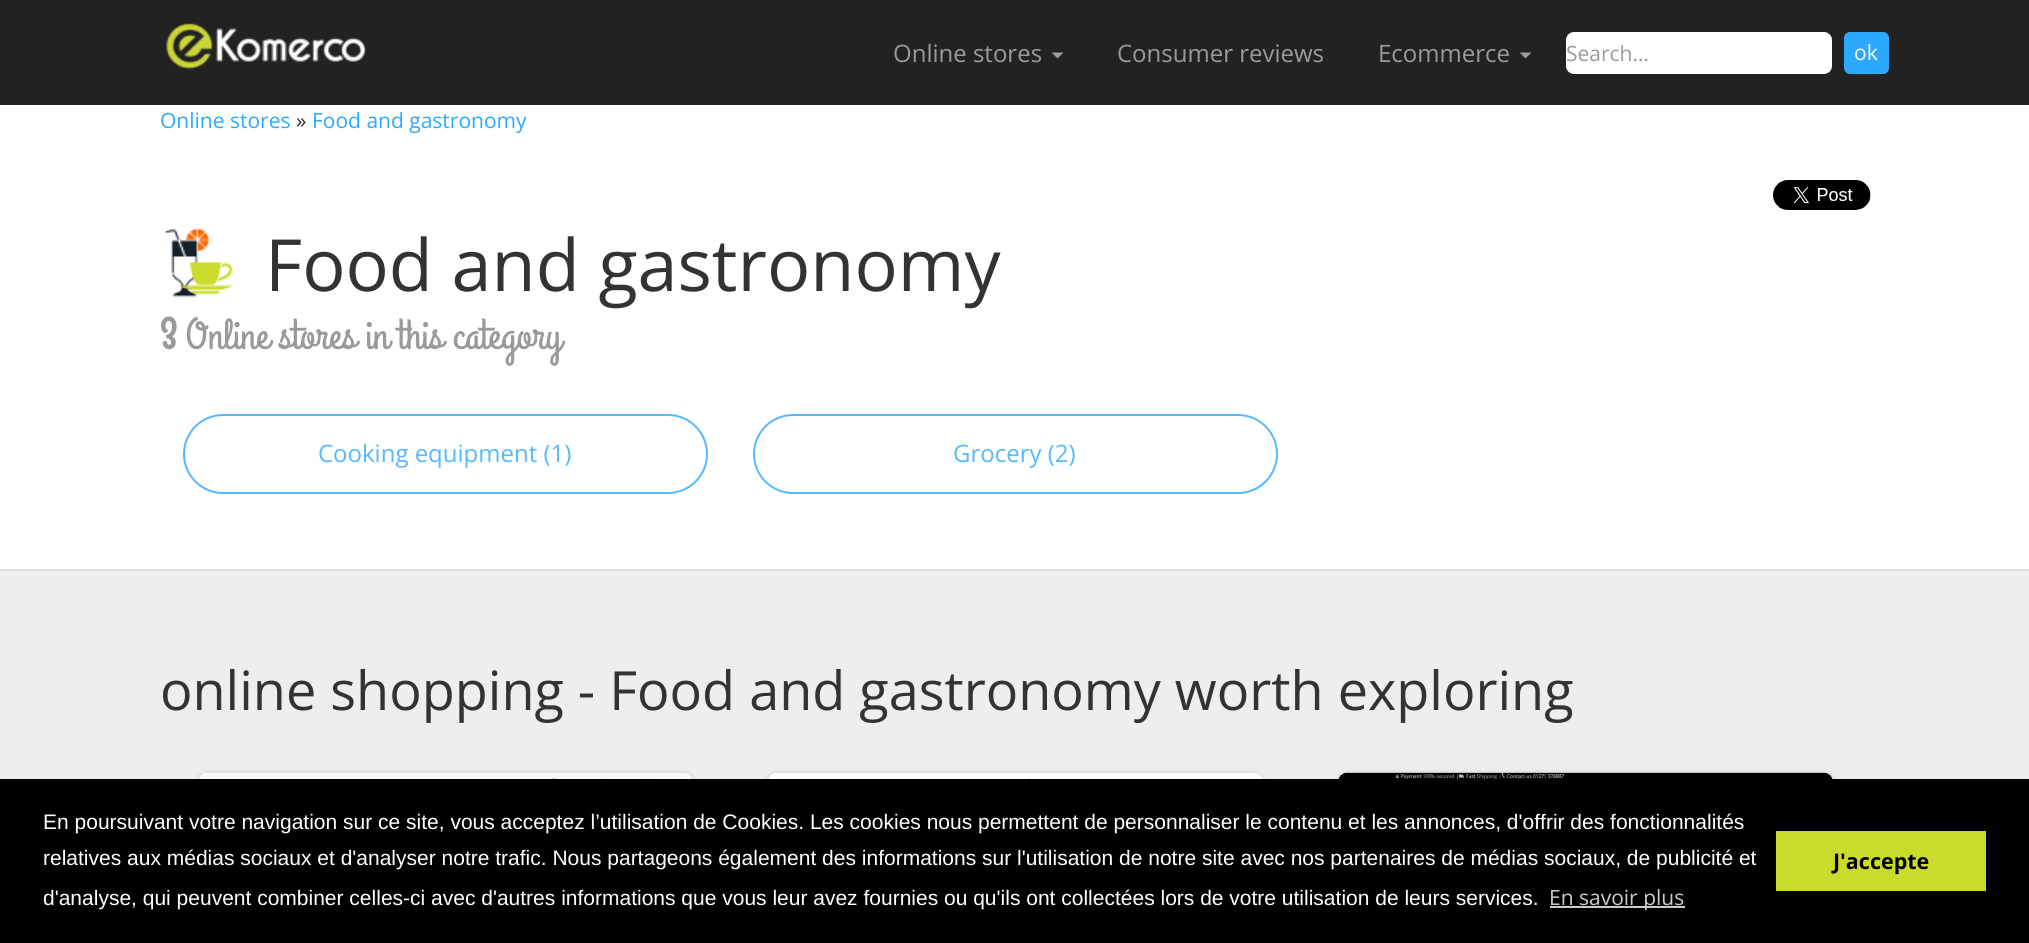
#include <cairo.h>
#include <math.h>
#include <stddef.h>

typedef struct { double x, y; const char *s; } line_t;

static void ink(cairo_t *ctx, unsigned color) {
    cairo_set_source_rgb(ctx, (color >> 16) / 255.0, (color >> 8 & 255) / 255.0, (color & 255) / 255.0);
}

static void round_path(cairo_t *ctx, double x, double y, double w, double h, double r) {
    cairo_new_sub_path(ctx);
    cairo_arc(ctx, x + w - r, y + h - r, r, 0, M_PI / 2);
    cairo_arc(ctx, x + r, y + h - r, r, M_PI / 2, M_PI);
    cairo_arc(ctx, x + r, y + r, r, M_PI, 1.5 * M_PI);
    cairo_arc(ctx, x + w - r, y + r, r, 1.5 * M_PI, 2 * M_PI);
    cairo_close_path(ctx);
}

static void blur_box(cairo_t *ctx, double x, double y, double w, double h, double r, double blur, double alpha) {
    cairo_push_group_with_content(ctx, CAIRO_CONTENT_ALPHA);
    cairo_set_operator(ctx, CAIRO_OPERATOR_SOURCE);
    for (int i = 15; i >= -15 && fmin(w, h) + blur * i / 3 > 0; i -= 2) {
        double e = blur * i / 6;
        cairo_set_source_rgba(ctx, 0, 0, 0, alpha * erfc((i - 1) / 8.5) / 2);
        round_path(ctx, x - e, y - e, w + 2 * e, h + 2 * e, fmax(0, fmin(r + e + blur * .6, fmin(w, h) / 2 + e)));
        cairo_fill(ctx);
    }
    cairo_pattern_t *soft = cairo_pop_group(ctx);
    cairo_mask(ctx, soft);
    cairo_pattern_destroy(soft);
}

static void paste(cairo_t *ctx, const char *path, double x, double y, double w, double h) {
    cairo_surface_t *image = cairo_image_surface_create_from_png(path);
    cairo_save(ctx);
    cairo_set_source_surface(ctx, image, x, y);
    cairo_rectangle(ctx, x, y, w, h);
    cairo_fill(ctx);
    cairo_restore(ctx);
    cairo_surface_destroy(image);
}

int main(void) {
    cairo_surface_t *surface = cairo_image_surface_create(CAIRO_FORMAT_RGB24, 2029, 943);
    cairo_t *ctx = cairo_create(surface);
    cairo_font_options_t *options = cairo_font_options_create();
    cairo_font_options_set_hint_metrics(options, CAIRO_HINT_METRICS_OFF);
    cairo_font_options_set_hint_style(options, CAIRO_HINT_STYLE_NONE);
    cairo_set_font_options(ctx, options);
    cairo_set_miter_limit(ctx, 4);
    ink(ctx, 0xFFFFFF);
    cairo_paint(ctx);
    ink(ctx, 0x222222);
    cairo_rectangle(ctx, 0, 0, 2029, 105);
    cairo_fill(ctx);
    paste(ctx, "media/1.png", 166, 23, 201, 47);
    cairo_select_font_face(ctx, "Open Sans", CAIRO_FONT_SLANT_NORMAL, CAIRO_FONT_WEIGHT_NORMAL);
    cairo_set_font_size(ctx, 24);
    ink(ctx, 0x9A9A9A);
    cairo_move_to(ctx, 893, 62);
    cairo_show_text(ctx, "Online stores");
    ink(ctx, 0x9D9D9D);
    cairo_new_path(ctx);
    cairo_move_to(ctx, 1051.5, 52.5);
    cairo_line_to(ctx, 1063.5, 52.5);
    cairo_line_to(ctx, 1057.5, 58.5);
    cairo_close_path(ctx);
    cairo_fill(ctx);
    ink(ctx, 0x9A9A9A);
    cairo_move_to(ctx, 1117, 62);
    cairo_show_text(ctx, "Consumer reviews");
    cairo_move_to(ctx, 1378, 62);
    cairo_show_text(ctx, "Ecommerce");
    ink(ctx, 0x9D9D9D);
    cairo_new_path(ctx);
    cairo_move_to(ctx, 1519.5, 52.5);
    cairo_line_to(ctx, 1531.5, 52.5);
    cairo_line_to(ctx, 1525.5, 58.5);
    cairo_close_path(ctx);
    cairo_fill(ctx);
    ink(ctx, 0xFFFFFF);
    round_path(ctx, 1566, 32, 266, 42, 8);
    cairo_fill(ctx);
    cairo_set_font_size(ctx, 21);
    ink(ctx, 0x9A9A9A);
    cairo_move_to(ctx, 1566, 61);
    cairo_show_text(ctx, "Search…");
    ink(ctx, 0x2CA8FF);
    round_path(ctx, 1845.5, 33.5, 42, 39, 4.5);
    cairo_fill_preserve(ctx);
    cairo_set_line_width(ctx, 3);
    cairo_stroke(ctx);
    ink(ctx, 0xFFFFFF);
    cairo_move_to(ctx, 1854, 60);
    cairo_show_text(ctx, "ok");
    ink(ctx, 0x2CA8FF);
    cairo_move_to(ctx, 160, 128);
    cairo_show_text(ctx, "Online stores");
    ink(ctx, 0x333333);
    cairo_move_to(ctx, 296, 128);
    cairo_show_text(ctx, "»");
    ink(ctx, 0x2CA8FF);
    cairo_move_to(ctx, 312, 128);
    cairo_show_text(ctx, "Food and gastronomy");
    paste(ctx, "media/2.png", 1773, 180, 98, 30);
    paste(ctx, "media/3.png", 164, 227, 69, 71);
    cairo_set_font_size(ctx, 72);
    ink(ctx, 0x333333);
    cairo_move_to(ctx, 265, 291);
    cairo_show_text(ctx, "Food and gastronomy");
    cairo_select_font_face(ctx, "Grand Hotel", CAIRO_FONT_SLANT_NORMAL, CAIRO_FONT_WEIGHT_BOLD);
    cairo_set_font_size(ctx, 43.25);
    ink(ctx, 0x9A9A9A);
    cairo_move_to(ctx, 160, 348);
    cairo_show_text(ctx, "3");
    cairo_select_font_face(ctx, "Grand Hotel", CAIRO_FONT_SLANT_NORMAL, CAIRO_FONT_WEIGHT_NORMAL);
    cairo_move_to(ctx, 186, 348);
    cairo_show_text(ctx, "Online stores in this category");
    round_path(ctx, 184, 415, 523, 78, 39);
    ink(ctx, 0x56B9FF);
    cairo_set_line_width(ctx, 2);
    cairo_stroke(ctx);
    cairo_select_font_face(ctx, "Open Sans", CAIRO_FONT_SLANT_NORMAL, CAIRO_FONT_WEIGHT_NORMAL);
    cairo_set_font_size(ctx, 24);
    cairo_move_to(ctx, 318, 462);
    cairo_show_text(ctx, "Cooking equipment (1)");
    round_path(ctx, 754, 415, 523, 78, 39);
    cairo_stroke(ctx);
    cairo_move_to(ctx, 953, 462);
    cairo_show_text(ctx, "Grocery (2)");
    ink(ctx, 0xEEEEEE);
    cairo_rectangle(ctx, 0, 571, 2029, 208);
    cairo_fill(ctx);
    ink(ctx, 0xDDDDDD);
    cairo_rectangle(ctx, 0, 569, 2029, 2);
    cairo_fill(ctx);
    cairo_set_font_size(ctx, 54);
    ink(ctx, 0x333333);
    cairo_move_to(ctx, 160, 710);
    cairo_show_text(ctx, "online shopping - Food and gastronomy worth exploring");
    ink(ctx, 0x000000);
    blur_box(ctx, 198, 774, 495, 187, 9, 3, 0.23);
    paste(ctx, "media/4.png", 198, 773, 495, 6);
    blur_box(ctx, 768, 774, 495, 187, 9, 3, 0.23);
    ink(ctx, 0xFFFFFF);
    round_path(ctx, 768, 773, 495, 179, 9);
    cairo_fill(ctx);
    paste(ctx, "media/5.png", 770, 773, 491, 6);
    ink(ctx, 0x000000);
    blur_box(ctx, 1338, 774, 495, 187, 9, 3, 0.23);
    paste(ctx, "media/6.png", 1338, 772, 495, 7);
    ink(ctx, 0x000000);
    cairo_rectangle(ctx, 0, 779, 2029, 164);
    cairo_fill(ctx);
    cairo_select_font_face(ctx, "Liberation Sans", CAIRO_FONT_SLANT_NORMAL, CAIRO_FONT_WEIGHT_NORMAL);
    cairo_set_font_size(ctx, 21);
    ink(ctx, 0xFFFFFF);
    {
        static const line_t items[] = {
            {43, 829, "En poursuivant votre navigation sur ce site, vous acceptez l’utilisation de Cookies. Les cookies nous permettent de personnaliser le contenu et les annonces, d'offrir des fonctionnalités"},
            {43, 865, "relatives aux médias sociaux et d'analyser notre trafic. Nous partageons également des informations sur l'utilisation de notre site avec nos partenaires de médias sociaux, de publicité et"},
            {43, 905, "d'analyse, qui peuvent combiner celles-ci avec d'autres informations que vous leur avez fournies ou qu'ils ont collectées lors de votre utilisation de leurs services."},
        };
        for (size_t i = 0; i < sizeof items / sizeof *items; i++) {
            cairo_move_to(ctx, items[i].x, items[i].y);
            cairo_show_text(ctx, items[i].s);
        }
    }
    ink(ctx, 0xCCCCCC);
    cairo_rectangle(ctx, 1550, 906, 135, 2);
    cairo_fill(ctx);
    cairo_select_font_face(ctx, "Open Sans", CAIRO_FONT_SLANT_NORMAL, CAIRO_FONT_WEIGHT_NORMAL);
    cairo_move_to(ctx, 1549, 905);
    cairo_show_text(ctx, "En savoir plus");
    ink(ctx, 0xCADB2B);
    cairo_rectangle(ctx, 1776, 831, 210, 60);
    cairo_fill(ctx);
    cairo_select_font_face(ctx, "Open Sans", CAIRO_FONT_SLANT_NORMAL, CAIRO_FONT_WEIGHT_BOLD);
    cairo_set_font_size(ctx, 21.5);
    ink(ctx, 0x000000);
    cairo_move_to(ctx, 1833, 869);
    cairo_show_text(ctx, "J'accepte");
    cairo_surface_write_to_png(surface, "image.png");
    cairo_font_options_destroy(options);
    cairo_destroy(ctx);
    cairo_surface_destroy(surface);
    return 0;
}
